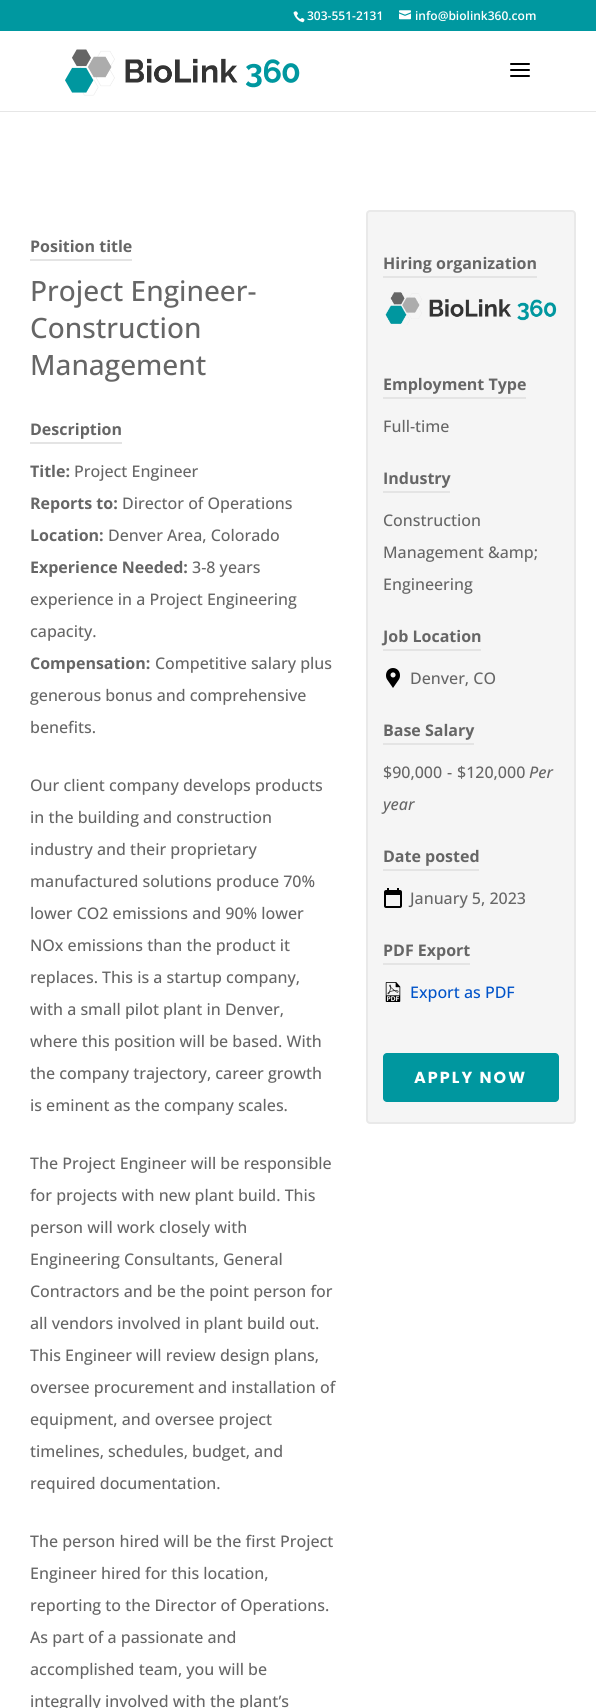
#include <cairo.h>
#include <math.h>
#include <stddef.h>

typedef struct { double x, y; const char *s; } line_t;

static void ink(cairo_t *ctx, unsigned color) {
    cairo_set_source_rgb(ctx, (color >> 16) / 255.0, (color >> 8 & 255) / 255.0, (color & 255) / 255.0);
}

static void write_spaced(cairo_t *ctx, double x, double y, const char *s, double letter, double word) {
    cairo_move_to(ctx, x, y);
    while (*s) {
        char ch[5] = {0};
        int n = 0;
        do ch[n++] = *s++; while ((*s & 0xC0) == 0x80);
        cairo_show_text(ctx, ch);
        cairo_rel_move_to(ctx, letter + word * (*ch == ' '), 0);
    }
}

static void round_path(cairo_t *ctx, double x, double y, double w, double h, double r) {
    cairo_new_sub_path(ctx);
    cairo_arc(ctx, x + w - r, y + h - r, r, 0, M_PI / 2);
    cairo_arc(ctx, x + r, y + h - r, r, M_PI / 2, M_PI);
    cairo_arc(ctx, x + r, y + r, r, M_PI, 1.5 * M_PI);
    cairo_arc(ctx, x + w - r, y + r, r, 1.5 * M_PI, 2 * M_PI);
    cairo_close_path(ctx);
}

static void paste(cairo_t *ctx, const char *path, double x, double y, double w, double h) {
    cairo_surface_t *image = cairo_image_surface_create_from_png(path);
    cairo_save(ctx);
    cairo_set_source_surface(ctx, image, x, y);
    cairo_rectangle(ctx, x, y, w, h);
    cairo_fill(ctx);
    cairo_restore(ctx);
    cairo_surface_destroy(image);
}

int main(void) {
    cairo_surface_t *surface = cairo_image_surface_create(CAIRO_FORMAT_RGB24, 596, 1708);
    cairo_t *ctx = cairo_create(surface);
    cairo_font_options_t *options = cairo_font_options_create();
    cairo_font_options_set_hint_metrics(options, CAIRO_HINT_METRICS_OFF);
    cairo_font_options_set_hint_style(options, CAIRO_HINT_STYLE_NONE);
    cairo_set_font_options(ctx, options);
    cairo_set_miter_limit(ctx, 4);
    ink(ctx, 0xFFFFFF);
    cairo_paint(ctx);
    ink(ctx, 0x0098A0);
    cairo_rectangle(ctx, 0, 0, 596, 31);
    cairo_fill(ctx);
    paste(ctx, "media/1.png", 293, 11, 12, 12);
    cairo_select_font_face(ctx, "Open Sans SemiBold", CAIRO_FONT_SLANT_NORMAL, CAIRO_FONT_WEIGHT_NORMAL);
    cairo_set_font_size(ctx, 12);
    ink(ctx, 0xFFFFFF);
    cairo_move_to(ctx, 307, 20);
    cairo_show_text(ctx, "303-551-2131");
    paste(ctx, "media/2.png", 399, 10, 12, 10);
    cairo_move_to(ctx, 415, 20);
    cairo_show_text(ctx, "info@biolink360.com");
    ink(ctx, 0xE6E6E6);
    cairo_rectangle(ctx, 0, 111, 596, 1);
    cairo_fill(ctx);
    paste(ctx, "media/3.png", 65, 49, 235, 47);
    paste(ctx, "media/4.png", 510, 63, 20, 14);
    cairo_select_font_face(ctx, "Open Sans", CAIRO_FONT_SLANT_NORMAL, CAIRO_FONT_WEIGHT_BOLD);
    cairo_set_font_size(ctx, 16);
    ink(ctx, 0x666666);
    cairo_move_to(ctx, 30, 252);
    cairo_show_text(ctx, "Position title");
    ink(ctx, 0xE4E4E4);
    cairo_rectangle(ctx, 30, 259, 102, 2);
    cairo_fill(ctx);
    cairo_select_font_face(ctx, "Open Sans Medium", CAIRO_FONT_SLANT_NORMAL, CAIRO_FONT_WEIGHT_NORMAL);
    cairo_set_font_size(ctx, 28);
    ink(ctx, 0x666666);
    {
        static const line_t items[] = {
            {30, 301, "Project Engineer-"},
            {30, 338, "Construction"},
            {30, 375, "Management"},
        };
        for (size_t i = 0; i < sizeof items / sizeof *items; i++) {
            cairo_move_to(ctx, items[i].x, items[i].y);
            cairo_show_text(ctx, items[i].s);
        }
    }
    cairo_select_font_face(ctx, "Open Sans", CAIRO_FONT_SLANT_NORMAL, CAIRO_FONT_WEIGHT_BOLD);
    cairo_set_font_size(ctx, 16);
    cairo_move_to(ctx, 30, 435);
    cairo_show_text(ctx, "Description");
    ink(ctx, 0xE4E4E4);
    cairo_rectangle(ctx, 30, 442, 92, 2);
    cairo_fill(ctx);
    ink(ctx, 0x666666);
    cairo_move_to(ctx, 30, 477);
    cairo_show_text(ctx, "Title:");
    cairo_select_font_face(ctx, "Open Sans Medium", CAIRO_FONT_SLANT_NORMAL, CAIRO_FONT_WEIGHT_NORMAL);
    cairo_move_to(ctx, 74, 477);
    cairo_show_text(ctx, "Project Engineer");
    cairo_select_font_face(ctx, "Open Sans", CAIRO_FONT_SLANT_NORMAL, CAIRO_FONT_WEIGHT_BOLD);
    cairo_move_to(ctx, 30, 509);
    cairo_show_text(ctx, "Reports to:");
    cairo_select_font_face(ctx, "Open Sans Medium", CAIRO_FONT_SLANT_NORMAL, CAIRO_FONT_WEIGHT_NORMAL);
    cairo_move_to(ctx, 122, 509);
    cairo_show_text(ctx, "Director of Operations");
    cairo_select_font_face(ctx, "Open Sans", CAIRO_FONT_SLANT_NORMAL, CAIRO_FONT_WEIGHT_BOLD);
    cairo_move_to(ctx, 30, 541);
    cairo_show_text(ctx, "Location:");
    cairo_select_font_face(ctx, "Open Sans Medium", CAIRO_FONT_SLANT_NORMAL, CAIRO_FONT_WEIGHT_NORMAL);
    cairo_move_to(ctx, 108, 541);
    cairo_show_text(ctx, "Denver Area, Colorado");
    cairo_select_font_face(ctx, "Open Sans", CAIRO_FONT_SLANT_NORMAL, CAIRO_FONT_WEIGHT_BOLD);
    cairo_move_to(ctx, 30, 573);
    cairo_show_text(ctx, "Experience Needed:");
    cairo_select_font_face(ctx, "Open Sans Medium", CAIRO_FONT_SLANT_NORMAL, CAIRO_FONT_WEIGHT_NORMAL);
    {
        static const line_t items[] = {
            {192, 573, "3-8 years"},
            {30, 605, "experience in a Project Engineering"},
            {30, 637, "capacity."},
        };
        for (size_t i = 0; i < sizeof items / sizeof *items; i++) {
            cairo_move_to(ctx, items[i].x, items[i].y);
            cairo_show_text(ctx, items[i].s);
        }
    }
    cairo_select_font_face(ctx, "Open Sans", CAIRO_FONT_SLANT_NORMAL, CAIRO_FONT_WEIGHT_BOLD);
    cairo_move_to(ctx, 30, 669);
    cairo_show_text(ctx, "Compensation:");
    cairo_select_font_face(ctx, "Open Sans Medium", CAIRO_FONT_SLANT_NORMAL, CAIRO_FONT_WEIGHT_NORMAL);
    {
        static const line_t items[] = {
            {155, 669, "Competitive salary plus"},
            {30, 701, "generous bonus and comprehensive"},
            {30, 733, "benefits."},
            {30, 791, "Our client company develops products"},
            {30, 823, "in the building and construction"},
            {30, 855, "industry and their proprietary"},
            {30, 887, "manufactured solutions produce 70%"},
            {30, 919, "lower CO2 emissions and 90% lower"},
            {30, 951, "NOx emissions than the product it"},
            {30, 983, "replaces. This is a startup company,"},
            {30, 1015, "with a small pilot plant in Denver,"},
            {30, 1047, "where this position will be based. With"},
            {30, 1079, "the company trajectory, career growth"},
            {30, 1111, "is eminent as the company scales."},
            {30, 1169, "The Project Engineer will be responsible"},
            {30, 1201, "for projects with new plant build. This"},
            {30, 1233, "person will work closely with"},
            {30, 1265, "Engineering Consultants, General"},
            {30, 1297, "Contractors and be the point person for"},
            {30, 1329, "all vendors involved in plant build out."},
            {30, 1361, "This Engineer will review design plans,"},
            {30, 1393, "oversee procurement and installation of"},
            {30, 1425, "equipment, and oversee project"},
            {30, 1457, "timelines, schedules, budget, and"},
            {30, 1489, "required documentation."},
            {30, 1547, "The person hired will be the first Project"},
            {30, 1579, "Engineer hired for this location,"},
            {30, 1611, "reporting to the Director of Operations."},
            {30, 1643, "As part of a passionate and"},
            {30, 1675, "accomplished team, you will be"},
            {30, 1707, "integrally involved with the plant’s"},
        };
        for (size_t i = 0; i < sizeof items / sizeof *items; i++) {
            cairo_move_to(ctx, items[i].x, items[i].y);
            cairo_show_text(ctx, items[i].s);
        }
    }
    ink(ctx, 0xF5F5F5);
    round_path(ctx, 367, 211, 208, 912, 3);
    cairo_fill_preserve(ctx);
    ink(ctx, 0xE9E9E9);
    cairo_stroke(ctx);
    cairo_select_font_face(ctx, "Open Sans", CAIRO_FONT_SLANT_NORMAL, CAIRO_FONT_WEIGHT_BOLD);
    ink(ctx, 0x666666);
    cairo_move_to(ctx, 383, 269);
    cairo_show_text(ctx, "Hiring organization");
    ink(ctx, 0xE4E4E4);
    cairo_rectangle(ctx, 383, 276, 154, 2);
    cairo_fill(ctx);
    paste(ctx, "media/5.png", 385, 292, 172, 33);
    ink(ctx, 0x666666);
    cairo_move_to(ctx, 383, 390);
    cairo_show_text(ctx, "Employment Type");
    ink(ctx, 0xE4E4E4);
    cairo_rectangle(ctx, 383, 397, 143, 2);
    cairo_fill(ctx);
    cairo_select_font_face(ctx, "Open Sans Medium", CAIRO_FONT_SLANT_NORMAL, CAIRO_FONT_WEIGHT_NORMAL);
    ink(ctx, 0x666666);
    cairo_move_to(ctx, 383, 432);
    cairo_show_text(ctx, "Full-time");
    cairo_select_font_face(ctx, "Open Sans", CAIRO_FONT_SLANT_NORMAL, CAIRO_FONT_WEIGHT_BOLD);
    cairo_move_to(ctx, 383, 484);
    cairo_show_text(ctx, "Industry");
    ink(ctx, 0xE4E4E4);
    cairo_rectangle(ctx, 383, 491, 67, 2);
    cairo_fill(ctx);
    cairo_select_font_face(ctx, "Open Sans Medium", CAIRO_FONT_SLANT_NORMAL, CAIRO_FONT_WEIGHT_NORMAL);
    ink(ctx, 0x666666);
    {
        static const line_t items[] = {
            {383, 526, "Construction"},
            {383, 558, "Management &amp;"},
            {383, 590, "Engineering"},
        };
        for (size_t i = 0; i < sizeof items / sizeof *items; i++) {
            cairo_move_to(ctx, items[i].x, items[i].y);
            cairo_show_text(ctx, items[i].s);
        }
    }
    cairo_select_font_face(ctx, "Open Sans", CAIRO_FONT_SLANT_NORMAL, CAIRO_FONT_WEIGHT_BOLD);
    cairo_move_to(ctx, 383, 642);
    cairo_show_text(ctx, "Job Location");
    ink(ctx, 0xE4E4E4);
    cairo_rectangle(ctx, 383, 649, 98, 2);
    cairo_fill(ctx);
    paste(ctx, "media/6.png", 386, 668, 14, 20);
    cairo_select_font_face(ctx, "Open Sans Medium", CAIRO_FONT_SLANT_NORMAL, CAIRO_FONT_WEIGHT_NORMAL);
    ink(ctx, 0x666666);
    cairo_move_to(ctx, 410, 684);
    cairo_show_text(ctx, "Denver, CO");
    cairo_select_font_face(ctx, "Open Sans", CAIRO_FONT_SLANT_NORMAL, CAIRO_FONT_WEIGHT_BOLD);
    cairo_move_to(ctx, 383, 736);
    cairo_show_text(ctx, "Base Salary");
    ink(ctx, 0xE4E4E4);
    cairo_rectangle(ctx, 383, 743, 91, 2);
    cairo_fill(ctx);
    cairo_select_font_face(ctx, "Open Sans Medium", CAIRO_FONT_SLANT_NORMAL, CAIRO_FONT_WEIGHT_NORMAL);
    ink(ctx, 0x666666);
    {
        static const line_t items[] = {
            {383, 778, "$90,000"},
            {447, 778, "-"},
            {457, 778, "$120,000"},
        };
        for (size_t i = 0; i < sizeof items / sizeof *items; i++) {
            cairo_move_to(ctx, items[i].x, items[i].y);
            cairo_show_text(ctx, items[i].s);
        }
    }
    cairo_select_font_face(ctx, "Open Sans Medium", CAIRO_FONT_SLANT_ITALIC, CAIRO_FONT_WEIGHT_NORMAL);
    cairo_move_to(ctx, 529, 778);
    cairo_show_text(ctx, "Per");
    cairo_move_to(ctx, 383, 810);
    cairo_show_text(ctx, "year");
    cairo_select_font_face(ctx, "Open Sans", CAIRO_FONT_SLANT_NORMAL, CAIRO_FONT_WEIGHT_BOLD);
    cairo_move_to(ctx, 383, 862);
    cairo_show_text(ctx, "Date posted");
    ink(ctx, 0xE4E4E4);
    cairo_rectangle(ctx, 383, 869, 96, 2);
    cairo_fill(ctx);
    paste(ctx, "media/7.png", 384, 888, 18, 20);
    cairo_select_font_face(ctx, "Open Sans Medium", CAIRO_FONT_SLANT_NORMAL, CAIRO_FONT_WEIGHT_NORMAL);
    ink(ctx, 0x666666);
    cairo_move_to(ctx, 410, 904);
    cairo_show_text(ctx, "January 5, 2023");
    cairo_select_font_face(ctx, "Open Sans", CAIRO_FONT_SLANT_NORMAL, CAIRO_FONT_WEIGHT_BOLD);
    cairo_move_to(ctx, 383, 956);
    cairo_show_text(ctx, "PDF Export");
    ink(ctx, 0xE4E4E4);
    cairo_rectangle(ctx, 383, 963, 87, 2);
    cairo_fill(ctx);
    paste(ctx, "media/8.png", 385, 982, 16, 20);
    cairo_select_font_face(ctx, "Open Sans Medium", CAIRO_FONT_SLANT_NORMAL, CAIRO_FONT_WEIGHT_NORMAL);
    ink(ctx, 0x0053C9);
    cairo_move_to(ctx, 410, 998);
    cairo_show_text(ctx, "Export as PDF");
    ink(ctx, 0x00979F);
    round_path(ctx, 383, 1053, 176, 49, 4);
    cairo_fill(ctx);
    cairo_select_font_face(ctx, "Poppins", CAIRO_FONT_SLANT_NORMAL, CAIRO_FONT_WEIGHT_BOLD);
    ink(ctx, 0xFFFFFF);
    write_spaced(ctx, 414, 1083, "APPLY NOW", 2, 0);
    cairo_surface_write_to_png(surface, "image.png");
    cairo_font_options_destroy(options);
    cairo_destroy(ctx);
    cairo_surface_destroy(surface);
    return 0;
}
